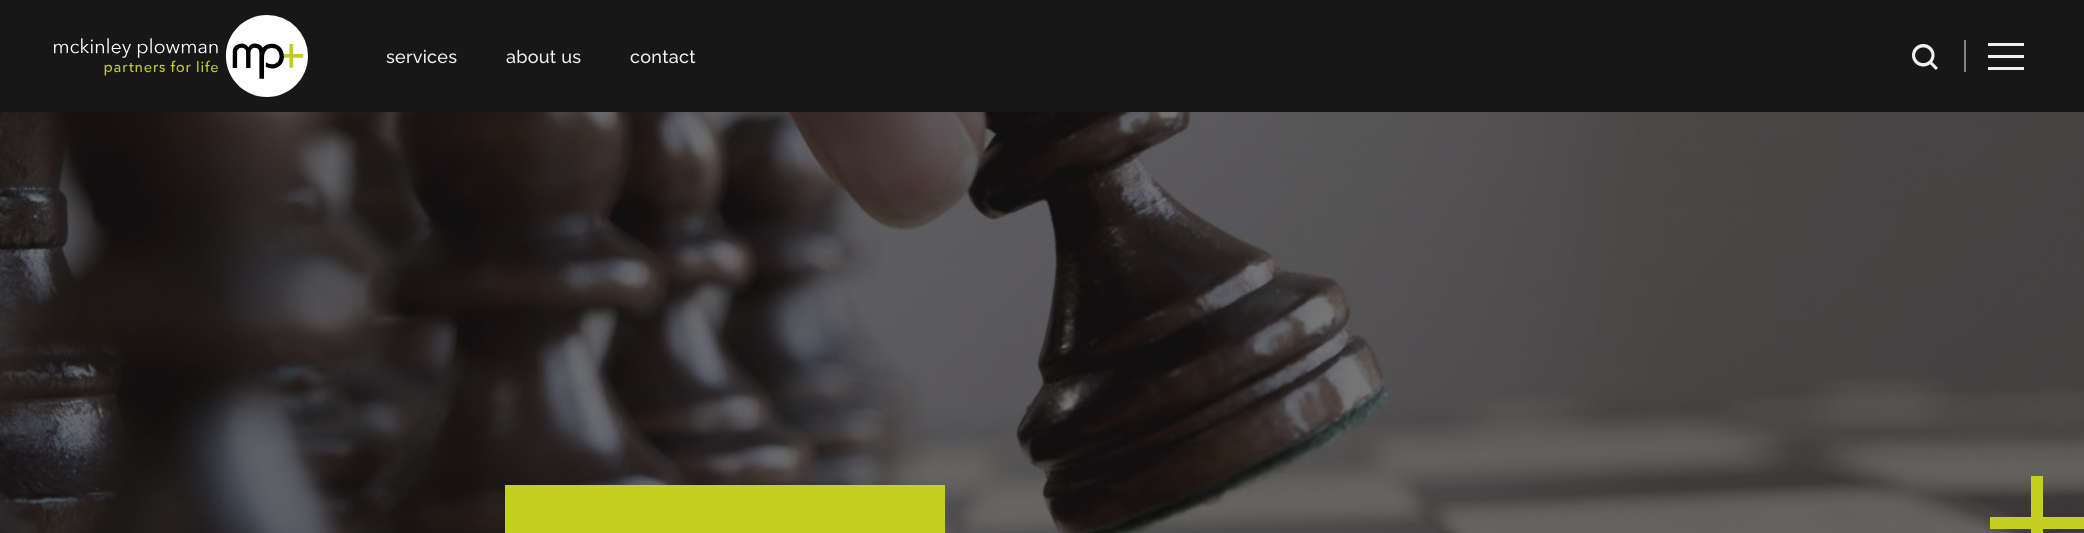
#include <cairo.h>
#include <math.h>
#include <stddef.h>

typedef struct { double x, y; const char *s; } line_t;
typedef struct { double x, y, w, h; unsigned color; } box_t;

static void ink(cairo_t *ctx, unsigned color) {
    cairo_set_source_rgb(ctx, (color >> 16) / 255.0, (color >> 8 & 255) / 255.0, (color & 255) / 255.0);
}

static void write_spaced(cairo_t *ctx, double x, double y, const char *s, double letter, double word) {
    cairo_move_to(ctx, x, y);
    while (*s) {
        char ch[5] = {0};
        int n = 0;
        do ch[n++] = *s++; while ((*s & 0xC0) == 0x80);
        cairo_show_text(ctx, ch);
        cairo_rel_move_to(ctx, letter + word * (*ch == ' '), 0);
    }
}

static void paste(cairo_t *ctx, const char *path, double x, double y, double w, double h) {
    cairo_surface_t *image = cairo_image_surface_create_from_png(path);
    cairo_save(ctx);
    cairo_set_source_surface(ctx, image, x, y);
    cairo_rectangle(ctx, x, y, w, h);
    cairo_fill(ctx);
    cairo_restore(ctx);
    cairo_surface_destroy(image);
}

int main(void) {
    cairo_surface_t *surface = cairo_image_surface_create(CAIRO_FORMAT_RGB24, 2084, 533);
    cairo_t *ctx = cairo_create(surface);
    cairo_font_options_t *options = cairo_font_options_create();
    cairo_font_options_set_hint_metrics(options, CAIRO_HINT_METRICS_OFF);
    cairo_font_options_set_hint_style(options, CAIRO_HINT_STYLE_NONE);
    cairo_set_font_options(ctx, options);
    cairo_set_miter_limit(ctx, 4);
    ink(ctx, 0xFFFFFF);
    cairo_paint(ctx);
    ink(ctx, 0x181717);
    cairo_rectangle(ctx, 0, 0, 2084, 112);
    cairo_fill(ctx);
    paste(ctx, "media/1.png", 54, 15, 254, 82);
    cairo_select_font_face(ctx, "Raleway Medium", CAIRO_FONT_SLANT_NORMAL, CAIRO_FONT_WEIGHT_NORMAL);
    cairo_set_font_size(ctx, 18);
    ink(ctx, 0xF0F0F0);
    {
        static const line_t items[] = {
            {386, 63, "services"},
            {506, 63, "about us"},
            {630, 63, "contact"},
        };
        for (size_t i = 0; i < sizeof items / sizeof *items; i++) {
            write_spaced(ctx, items[i].x, items[i].y, items[i].s, 0.25, 0);
        }
    }
    paste(ctx, "media/2.png", 1912, 44, 26, 26);
    {
        static const box_t items[] = {
            {1964, 40, 2, 32, 0x848484},
            {1988, 55, 36, 3, 0xF0F0F0},
            {1988, 43, 36, 3, 0xF0F0F0},
            {1988, 67, 36, 3, 0xF0F0F0},
        };
        for (size_t i = 0; i < sizeof items / sizeof *items; i++) {
            ink(ctx, items[i].color);
            cairo_rectangle(ctx, items[i].x, items[i].y, items[i].w, items[i].h);
            cairo_fill(ctx);
        }
    }
    paste(ctx, "media/3.png", 0, 112, 2084, 421);
    ink(ctx, 0xC3CF21);
    cairo_rectangle(ctx, 505, 485, 440, 48);
    cairo_fill(ctx);
    cairo_new_path(ctx);
    cairo_move_to(ctx, 2084, 517);
    cairo_line_to(ctx, 2043, 517);
    cairo_line_to(ctx, 2043, 476);
    cairo_line_to(ctx, 2031, 476);
    cairo_line_to(ctx, 2031, 517);
    cairo_line_to(ctx, 1990, 517);
    cairo_line_to(ctx, 1990, 529);
    cairo_line_to(ctx, 2031, 529);
    cairo_line_to(ctx, 2031, 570);
    cairo_line_to(ctx, 2043, 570);
    cairo_line_to(ctx, 2043, 529);
    cairo_line_to(ctx, 2084, 529);
    cairo_close_path(ctx);
    cairo_fill(ctx);
    cairo_surface_write_to_png(surface, "image.png");
    cairo_font_options_destroy(options);
    cairo_destroy(ctx);
    cairo_surface_destroy(surface);
    return 0;
}
